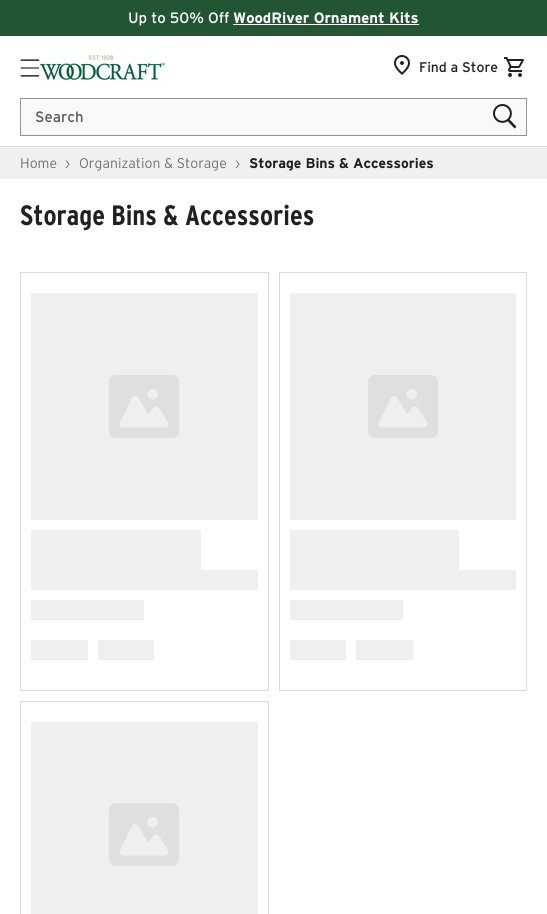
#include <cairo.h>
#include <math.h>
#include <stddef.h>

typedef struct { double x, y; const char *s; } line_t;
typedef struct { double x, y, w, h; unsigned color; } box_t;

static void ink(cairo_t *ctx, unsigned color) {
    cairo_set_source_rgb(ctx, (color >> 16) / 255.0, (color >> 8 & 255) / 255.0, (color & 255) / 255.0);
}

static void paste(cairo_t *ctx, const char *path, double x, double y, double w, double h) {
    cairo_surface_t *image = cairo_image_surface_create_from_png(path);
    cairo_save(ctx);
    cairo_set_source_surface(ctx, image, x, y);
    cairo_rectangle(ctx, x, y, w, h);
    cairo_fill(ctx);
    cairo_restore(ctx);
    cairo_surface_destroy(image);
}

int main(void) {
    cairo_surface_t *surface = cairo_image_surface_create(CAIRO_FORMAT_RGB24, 547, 914);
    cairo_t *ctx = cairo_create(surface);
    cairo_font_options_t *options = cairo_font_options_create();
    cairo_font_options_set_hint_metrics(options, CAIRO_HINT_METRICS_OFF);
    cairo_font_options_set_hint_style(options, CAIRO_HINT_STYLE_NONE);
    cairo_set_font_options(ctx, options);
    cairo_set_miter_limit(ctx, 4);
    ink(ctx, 0xFFFFFF);
    cairo_paint(ctx);
    ink(ctx, 0x225633);
    cairo_rectangle(ctx, 0, 0, 547, 36);
    cairo_fill(ctx);
    cairo_select_font_face(ctx, "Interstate", CAIRO_FONT_SLANT_NORMAL, CAIRO_FONT_WEIGHT_NORMAL);
    cairo_set_font_size(ctx, 15);
    ink(ctx, 0xFFFFFF);
    cairo_move_to(ctx, 128, 23);
    cairo_show_text(ctx, "Up to 50% Off");
    cairo_select_font_face(ctx, "Interstate", CAIRO_FONT_SLANT_NORMAL, CAIRO_FONT_WEIGHT_BOLD);
    cairo_move_to(ctx, 233, 23);
    cairo_show_text(ctx, "WoodRiver Ornament Kits");
    cairo_rectangle(ctx, 233, 24, 186, 1);
    cairo_fill(ctx);
    ink(ctx, 0xD9D9D9);
    cairo_rectangle(ctx, 0, 146, 547, 1);
    cairo_fill(ctx);
    paste(ctx, "media/1.png", 20, 59, 20, 18);
    paste(ctx, "media/2.png", 40, 55, 125, 25);
    paste(ctx, "media/3.png", 394, 55, 16, 20);
    cairo_select_font_face(ctx, "Interstate", CAIRO_FONT_SLANT_NORMAL, CAIRO_FONT_WEIGHT_NORMAL);
    cairo_set_font_size(ctx, 14);
    ink(ctx, 0x202020);
    cairo_move_to(ctx, 419, 72);
    cairo_show_text(ctx, "Find a Store");
    paste(ctx, "media/4.png", 504, 57, 20, 20);
    ink(ctx, 0xF9F9F9);
    cairo_rectangle(ctx, 20.5, 98.5, 506, 37);
    cairo_fill_preserve(ctx);
    ink(ctx, 0x949494);
    cairo_set_line_width(ctx, 1);
    cairo_stroke(ctx);
    cairo_set_font_size(ctx, 15);
    ink(ctx, 0x5C5A59);
    cairo_move_to(ctx, 35, 122);
    cairo_show_text(ctx, "Search");
    paste(ctx, "media/5.png", 493, 104, 24, 25);
    ink(ctx, 0xF0F0F0);
    cairo_rectangle(ctx, 0, 147, 547, 32);
    cairo_fill(ctx);
    cairo_select_font_face(ctx, "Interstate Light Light", CAIRO_FONT_SLANT_NORMAL, CAIRO_FONT_WEIGHT_NORMAL);
    cairo_set_font_size(ctx, 14);
    ink(ctx, 0x707070);
    {
        static const line_t items[] = {
            {20, 168, "Home"},
            {65, 168, "›"},
            {79, 168, "Organization & Storage"},
            {235, 168, "›"},
        };
        for (size_t i = 0; i < sizeof items / sizeof *items; i++) {
            cairo_move_to(ctx, items[i].x, items[i].y);
            cairo_show_text(ctx, items[i].s);
        }
    }
    cairo_select_font_face(ctx, "Interstate", CAIRO_FONT_SLANT_NORMAL, CAIRO_FONT_WEIGHT_BOLD);
    ink(ctx, 0x202020);
    cairo_move_to(ctx, 249, 168);
    cairo_show_text(ctx, "Storage Bins & Accessories");
    cairo_select_font_face(ctx, "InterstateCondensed", CAIRO_FONT_SLANT_NORMAL, CAIRO_FONT_WEIGHT_BOLD);
    cairo_set_font_size(ctx, 28);
    cairo_move_to(ctx, 20, 225);
    cairo_show_text(ctx, "Storage Bins & Accessories");
    cairo_rectangle(ctx, 20.5, 272.5, 248, 418);
    ink(ctx, 0xD9D9D9);
    cairo_stroke(ctx);
    ink(ctx, 0xEFEFEF);
    cairo_rectangle(ctx, 31, 293, 227, 227);
    cairo_fill(ctx);
    paste(ctx, "media/6.png", 109, 375, 70, 63);
    {
        static const box_t items[] = {
            {31, 530, 170, 40, 0xEFEFEF},
            {31, 570, 227, 20, 0xEFEFEF},
            {31, 600, 113, 20, 0xEFEFEF},
            {31, 640, 57, 20, 0xEFEFEF},
            {98, 640, 56, 20, 0xEFEFEF},
        };
        for (size_t i = 0; i < sizeof items / sizeof *items; i++) {
            ink(ctx, items[i].color);
            cairo_rectangle(ctx, items[i].x, items[i].y, items[i].w, items[i].h);
            cairo_fill(ctx);
        }
    }
    cairo_rectangle(ctx, 279.5, 272.5, 247, 418);
    ink(ctx, 0xD9D9D9);
    cairo_stroke(ctx);
    ink(ctx, 0xEFEFEF);
    cairo_rectangle(ctx, 290, 293, 226, 227);
    cairo_fill(ctx);
    paste(ctx, "media/6.png", 368, 375, 70, 63);
    {
        static const box_t items[] = {
            {290, 530, 169, 40, 0xEFEFEF},
            {290, 570, 226, 20, 0xEFEFEF},
            {290, 600, 113, 20, 0xEFEFEF},
            {290, 640, 56, 20, 0xEFEFEF},
            {356, 640, 57, 20, 0xEFEFEF},
        };
        for (size_t i = 0; i < sizeof items / sizeof *items; i++) {
            ink(ctx, items[i].color);
            cairo_rectangle(ctx, items[i].x, items[i].y, items[i].w, items[i].h);
            cairo_fill(ctx);
        }
    }
    cairo_rectangle(ctx, 20.5, 701.5, 248, 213);
    ink(ctx, 0xD9D9D9);
    cairo_stroke(ctx);
    ink(ctx, 0xEFEFEF);
    cairo_rectangle(ctx, 31, 722, 227, 192);
    cairo_fill(ctx);
    paste(ctx, "media/6.png", 109, 803, 70, 63);
    cairo_surface_write_to_png(surface, "image.png");
    cairo_font_options_destroy(options);
    cairo_destroy(ctx);
    cairo_surface_destroy(surface);
    return 0;
}
